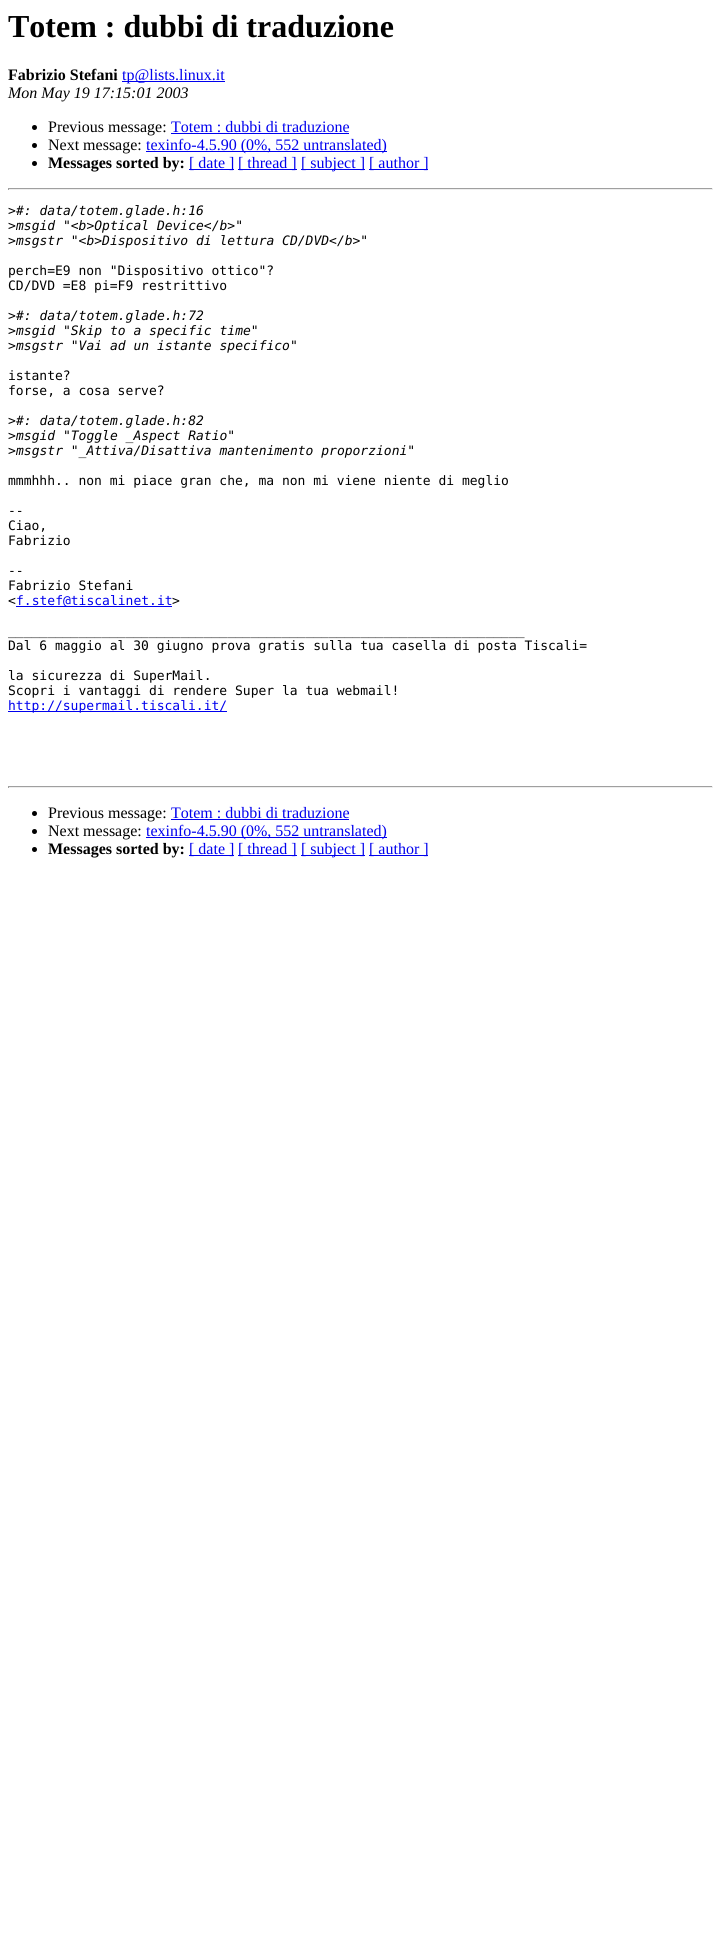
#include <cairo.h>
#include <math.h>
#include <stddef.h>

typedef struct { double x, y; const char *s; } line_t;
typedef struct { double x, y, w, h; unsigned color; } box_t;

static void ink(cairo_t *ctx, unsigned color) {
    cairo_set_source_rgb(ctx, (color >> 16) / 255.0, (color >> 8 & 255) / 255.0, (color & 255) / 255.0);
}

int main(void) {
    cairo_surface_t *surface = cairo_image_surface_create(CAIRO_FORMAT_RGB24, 721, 1956);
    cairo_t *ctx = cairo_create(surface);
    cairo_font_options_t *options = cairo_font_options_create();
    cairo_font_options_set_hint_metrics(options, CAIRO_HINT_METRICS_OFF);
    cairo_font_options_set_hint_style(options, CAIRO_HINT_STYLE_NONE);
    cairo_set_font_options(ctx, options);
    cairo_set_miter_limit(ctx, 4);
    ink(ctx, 0xFFFFFF);
    cairo_paint(ctx);
    cairo_select_font_face(ctx, "Liberation Serif", CAIRO_FONT_SLANT_NORMAL, CAIRO_FONT_WEIGHT_BOLD);
    cairo_set_font_size(ctx, 32);
    ink(ctx, 0x000000);
    cairo_move_to(ctx, 8, 37);
    cairo_show_text(ctx, "Totem : dubbi di traduzione");
    cairo_set_font_size(ctx, 16);
    cairo_move_to(ctx, 8, 80);
    cairo_show_text(ctx, "Fabrizio Stefani");
    ink(ctx, 0x0000EE);
    cairo_rectangle(ctx, 122, 81, 103, 1);
    cairo_fill(ctx);
    cairo_select_font_face(ctx, "Liberation Serif", CAIRO_FONT_SLANT_NORMAL, CAIRO_FONT_WEIGHT_NORMAL);
    cairo_move_to(ctx, 122, 80);
    cairo_show_text(ctx, "tp@lists.linux.it");
    cairo_select_font_face(ctx, "Liberation Serif", CAIRO_FONT_SLANT_ITALIC, CAIRO_FONT_WEIGHT_NORMAL);
    ink(ctx, 0x000000);
    cairo_move_to(ctx, 8, 98);
    cairo_show_text(ctx, "Mon May 19 17:15:01 2003");
    cairo_new_path(ctx);
    cairo_arc(ctx, 34.5, 127.5, 2.5, 0, 2 * M_PI);
    cairo_fill(ctx);
    cairo_select_font_face(ctx, "Liberation Serif", CAIRO_FONT_SLANT_NORMAL, CAIRO_FONT_WEIGHT_NORMAL);
    cairo_move_to(ctx, 48, 132);
    cairo_show_text(ctx, "Previous message:");
    ink(ctx, 0x0000EE);
    cairo_move_to(ctx, 171, 132);
    cairo_show_text(ctx, "Totem : dubbi di traduzione");
    cairo_rectangle(ctx, 171, 133, 178, 1);
    cairo_fill(ctx);
    ink(ctx, 0x000000);
    cairo_arc(ctx, 34.5, 145.5, 2.5, 0, 2 * M_PI);
    cairo_fill(ctx);
    cairo_move_to(ctx, 48, 150);
    cairo_show_text(ctx, "Next message:");
    ink(ctx, 0x0000EE);
    cairo_rectangle(ctx, 146, 151, 241, 1);
    cairo_fill(ctx);
    cairo_move_to(ctx, 146, 150);
    cairo_show_text(ctx, "texinfo-4.5.90 (0%, 552 untranslated)");
    ink(ctx, 0x000000);
    cairo_new_path(ctx);
    cairo_arc(ctx, 34.5, 163.5, 2.5, 0, 2 * M_PI);
    cairo_fill(ctx);
    cairo_select_font_face(ctx, "Liberation Serif", CAIRO_FONT_SLANT_NORMAL, CAIRO_FONT_WEIGHT_BOLD);
    cairo_move_to(ctx, 48, 168);
    cairo_show_text(ctx, "Messages sorted by:");
    ink(ctx, 0x0000EE);
    cairo_rectangle(ctx, 189, 169, 45, 1);
    cairo_fill(ctx);
    cairo_select_font_face(ctx, "Liberation Serif", CAIRO_FONT_SLANT_NORMAL, CAIRO_FONT_WEIGHT_NORMAL);
    cairo_move_to(ctx, 189, 168);
    cairo_show_text(ctx, "[ date ]");
    cairo_rectangle(ctx, 238, 169, 59, 1);
    cairo_fill(ctx);
    cairo_move_to(ctx, 238, 168);
    cairo_show_text(ctx, "[ thread ]");
    cairo_rectangle(ctx, 301, 169, 64, 1);
    cairo_fill(ctx);
    cairo_move_to(ctx, 301, 168);
    cairo_show_text(ctx, "[ subject ]");
    cairo_rectangle(ctx, 369, 169, 59, 1);
    cairo_fill(ctx);
    cairo_move_to(ctx, 369, 168);
    cairo_show_text(ctx, "[ author ]");
    {
        static const box_t items[] = {
            {8, 188, 705, 1, 0x9F9F9F},
            {712, 188, 1, 2, 0xEEEEEE},
            {8, 189, 705, 1, 0xEEEEEE},
            {8, 188, 1, 2, 0x9F9F9F},
        };
        for (size_t i = 0; i < sizeof items / sizeof *items; i++) {
            ink(ctx, items[i].color);
            cairo_rectangle(ctx, items[i].x, items[i].y, items[i].w, items[i].h);
            cairo_fill(ctx);
        }
    }
    cairo_select_font_face(ctx, "DejaVu Sans Mono", CAIRO_FONT_SLANT_NORMAL, CAIRO_FONT_WEIGHT_NORMAL);
    cairo_set_font_size(ctx, 13);
    ink(ctx, 0x000000);
    cairo_move_to(ctx, 8, 215);
    cairo_show_text(ctx, ">");
    cairo_select_font_face(ctx, "DejaVu Sans Mono", CAIRO_FONT_SLANT_ITALIC, CAIRO_FONT_WEIGHT_NORMAL);
    cairo_move_to(ctx, 16, 215);
    cairo_show_text(ctx, "#: data/totem.glade.h:16");
    cairo_select_font_face(ctx, "DejaVu Sans Mono", CAIRO_FONT_SLANT_NORMAL, CAIRO_FONT_WEIGHT_NORMAL);
    cairo_move_to(ctx, 8, 230);
    cairo_show_text(ctx, ">");
    cairo_select_font_face(ctx, "DejaVu Sans Mono", CAIRO_FONT_SLANT_ITALIC, CAIRO_FONT_WEIGHT_NORMAL);
    cairo_move_to(ctx, 16, 230);
    cairo_show_text(ctx, "msgid \"<b>Optical Device</b>\"");
    cairo_select_font_face(ctx, "DejaVu Sans Mono", CAIRO_FONT_SLANT_NORMAL, CAIRO_FONT_WEIGHT_NORMAL);
    cairo_move_to(ctx, 8, 245);
    cairo_show_text(ctx, ">");
    cairo_select_font_face(ctx, "DejaVu Sans Mono", CAIRO_FONT_SLANT_ITALIC, CAIRO_FONT_WEIGHT_NORMAL);
    cairo_move_to(ctx, 16, 245);
    cairo_show_text(ctx, "msgstr \"<b>Dispositivo di lettura CD/DVD</b>\"");
    cairo_select_font_face(ctx, "DejaVu Sans Mono", CAIRO_FONT_SLANT_NORMAL, CAIRO_FONT_WEIGHT_NORMAL);
    {
        static const line_t items[] = {
            {8, 275, "perch=E9 non \"Dispositivo ottico\"?"},
            {8, 290, "CD/DVD =E8 pi=F9 restrittivo"},
            {8, 320, ">"},
        };
        for (size_t i = 0; i < sizeof items / sizeof *items; i++) {
            cairo_move_to(ctx, items[i].x, items[i].y);
            cairo_show_text(ctx, items[i].s);
        }
    }
    cairo_select_font_face(ctx, "DejaVu Sans Mono", CAIRO_FONT_SLANT_ITALIC, CAIRO_FONT_WEIGHT_NORMAL);
    cairo_move_to(ctx, 16, 320);
    cairo_show_text(ctx, "#: data/totem.glade.h:72");
    cairo_select_font_face(ctx, "DejaVu Sans Mono", CAIRO_FONT_SLANT_NORMAL, CAIRO_FONT_WEIGHT_NORMAL);
    cairo_move_to(ctx, 8, 335);
    cairo_show_text(ctx, ">");
    cairo_select_font_face(ctx, "DejaVu Sans Mono", CAIRO_FONT_SLANT_ITALIC, CAIRO_FONT_WEIGHT_NORMAL);
    cairo_move_to(ctx, 16, 335);
    cairo_show_text(ctx, "msgid \"Skip to a specific time\"");
    cairo_select_font_face(ctx, "DejaVu Sans Mono", CAIRO_FONT_SLANT_NORMAL, CAIRO_FONT_WEIGHT_NORMAL);
    cairo_move_to(ctx, 8, 350);
    cairo_show_text(ctx, ">");
    cairo_select_font_face(ctx, "DejaVu Sans Mono", CAIRO_FONT_SLANT_ITALIC, CAIRO_FONT_WEIGHT_NORMAL);
    cairo_move_to(ctx, 16, 350);
    cairo_show_text(ctx, "msgstr \"Vai ad un istante specifico\"");
    cairo_select_font_face(ctx, "DejaVu Sans Mono", CAIRO_FONT_SLANT_NORMAL, CAIRO_FONT_WEIGHT_NORMAL);
    {
        static const line_t items[] = {
            {8, 380, "istante?"},
            {8, 395, "forse, a cosa serve?"},
            {8, 425, ">"},
        };
        for (size_t i = 0; i < sizeof items / sizeof *items; i++) {
            cairo_move_to(ctx, items[i].x, items[i].y);
            cairo_show_text(ctx, items[i].s);
        }
    }
    cairo_select_font_face(ctx, "DejaVu Sans Mono", CAIRO_FONT_SLANT_ITALIC, CAIRO_FONT_WEIGHT_NORMAL);
    cairo_move_to(ctx, 16, 425);
    cairo_show_text(ctx, "#: data/totem.glade.h:82");
    cairo_select_font_face(ctx, "DejaVu Sans Mono", CAIRO_FONT_SLANT_NORMAL, CAIRO_FONT_WEIGHT_NORMAL);
    cairo_move_to(ctx, 8, 440);
    cairo_show_text(ctx, ">");
    cairo_select_font_face(ctx, "DejaVu Sans Mono", CAIRO_FONT_SLANT_ITALIC, CAIRO_FONT_WEIGHT_NORMAL);
    cairo_move_to(ctx, 16, 440);
    cairo_show_text(ctx, "msgid \"Toggle _Aspect Ratio\"");
    cairo_select_font_face(ctx, "DejaVu Sans Mono", CAIRO_FONT_SLANT_NORMAL, CAIRO_FONT_WEIGHT_NORMAL);
    cairo_move_to(ctx, 8, 455);
    cairo_show_text(ctx, ">");
    cairo_select_font_face(ctx, "DejaVu Sans Mono", CAIRO_FONT_SLANT_ITALIC, CAIRO_FONT_WEIGHT_NORMAL);
    cairo_move_to(ctx, 16, 455);
    cairo_show_text(ctx, "msgstr \"_Attiva/Disattiva mantenimento proporzioni\"");
    cairo_select_font_face(ctx, "DejaVu Sans Mono", CAIRO_FONT_SLANT_NORMAL, CAIRO_FONT_WEIGHT_NORMAL);
    {
        static const line_t items[] = {
            {8, 485, "mmmhhh.. non mi piace gran che, ma non mi viene niente di meglio"},
            {8, 515, "--"},
            {8, 530, "Ciao,"},
            {8, 545, "Fabrizio"},
            {8, 575, "--"},
            {8, 590, "Fabrizio Stefani"},
            {8, 605, "<"},
        };
        for (size_t i = 0; i < sizeof items / sizeof *items; i++) {
            cairo_move_to(ctx, items[i].x, items[i].y);
            cairo_show_text(ctx, items[i].s);
        }
    }
    ink(ctx, 0x0000EE);
    cairo_rectangle(ctx, 16, 606, 156, 1);
    cairo_fill(ctx);
    cairo_move_to(ctx, 16, 605);
    cairo_show_text(ctx, "f.stef@tiscalinet.it");
    ink(ctx, 0x000000);
    {
        static const line_t items[] = {
            {172, 605, ">"},
            {8, 635, "__________________________________________________________________"},
            {8, 650, "Dal 6 maggio al 30 giugno prova gratis sulla tua casella di posta Tiscali="},
            {8, 680, "la sicurezza di SuperMail."},
            {8, 695, "Scopri i vantaggi di rendere Super la tua webmail!"},
        };
        for (size_t i = 0; i < sizeof items / sizeof *items; i++) {
            cairo_move_to(ctx, items[i].x, items[i].y);
            cairo_show_text(ctx, items[i].s);
        }
    }
    ink(ctx, 0x0000EE);
    cairo_rectangle(ctx, 8, 711, 219, 1);
    cairo_fill(ctx);
    cairo_move_to(ctx, 8, 710);
    cairo_show_text(ctx, "http://supermail.tiscali.it/");
    {
        static const box_t items[] = {
            {8, 786, 705, 1, 0x9F9F9F},
            {712, 786, 1, 2, 0xEEEEEE},
            {8, 787, 705, 1, 0xEEEEEE},
            {8, 786, 1, 2, 0x9F9F9F},
        };
        for (size_t i = 0; i < sizeof items / sizeof *items; i++) {
            ink(ctx, items[i].color);
            cairo_rectangle(ctx, items[i].x, items[i].y, items[i].w, items[i].h);
            cairo_fill(ctx);
        }
    }
    ink(ctx, 0x000000);
    cairo_new_path(ctx);
    cairo_arc(ctx, 34.5, 813.5, 2.5, 0, 2 * M_PI);
    cairo_fill(ctx);
    cairo_select_font_face(ctx, "Liberation Serif", CAIRO_FONT_SLANT_NORMAL, CAIRO_FONT_WEIGHT_NORMAL);
    cairo_set_font_size(ctx, 16);
    cairo_move_to(ctx, 48, 818);
    cairo_show_text(ctx, "Previous message:");
    ink(ctx, 0x0000EE);
    cairo_move_to(ctx, 171, 818);
    cairo_show_text(ctx, "Totem : dubbi di traduzione");
    cairo_rectangle(ctx, 171, 819, 178, 1);
    cairo_fill(ctx);
    ink(ctx, 0x000000);
    cairo_arc(ctx, 34.5, 831.5, 2.5, 0, 2 * M_PI);
    cairo_fill(ctx);
    cairo_move_to(ctx, 48, 836);
    cairo_show_text(ctx, "Next message:");
    ink(ctx, 0x0000EE);
    cairo_rectangle(ctx, 146, 837, 241, 1);
    cairo_fill(ctx);
    cairo_move_to(ctx, 146, 836);
    cairo_show_text(ctx, "texinfo-4.5.90 (0%, 552 untranslated)");
    ink(ctx, 0x000000);
    cairo_new_path(ctx);
    cairo_arc(ctx, 34.5, 849.5, 2.5, 0, 2 * M_PI);
    cairo_fill(ctx);
    cairo_select_font_face(ctx, "Liberation Serif", CAIRO_FONT_SLANT_NORMAL, CAIRO_FONT_WEIGHT_BOLD);
    cairo_move_to(ctx, 48, 854);
    cairo_show_text(ctx, "Messages sorted by:");
    ink(ctx, 0x0000EE);
    cairo_rectangle(ctx, 189, 855, 45, 1);
    cairo_fill(ctx);
    cairo_select_font_face(ctx, "Liberation Serif", CAIRO_FONT_SLANT_NORMAL, CAIRO_FONT_WEIGHT_NORMAL);
    cairo_move_to(ctx, 189, 854);
    cairo_show_text(ctx, "[ date ]");
    cairo_rectangle(ctx, 238, 855, 59, 1);
    cairo_fill(ctx);
    cairo_move_to(ctx, 238, 854);
    cairo_show_text(ctx, "[ thread ]");
    cairo_rectangle(ctx, 301, 855, 64, 1);
    cairo_fill(ctx);
    cairo_move_to(ctx, 301, 854);
    cairo_show_text(ctx, "[ subject ]");
    cairo_rectangle(ctx, 369, 855, 59, 1);
    cairo_fill(ctx);
    cairo_move_to(ctx, 369, 854);
    cairo_show_text(ctx, "[ author ]");
    cairo_surface_write_to_png(surface, "image.png");
    cairo_font_options_destroy(options);
    cairo_destroy(ctx);
    cairo_surface_destroy(surface);
    return 0;
}
